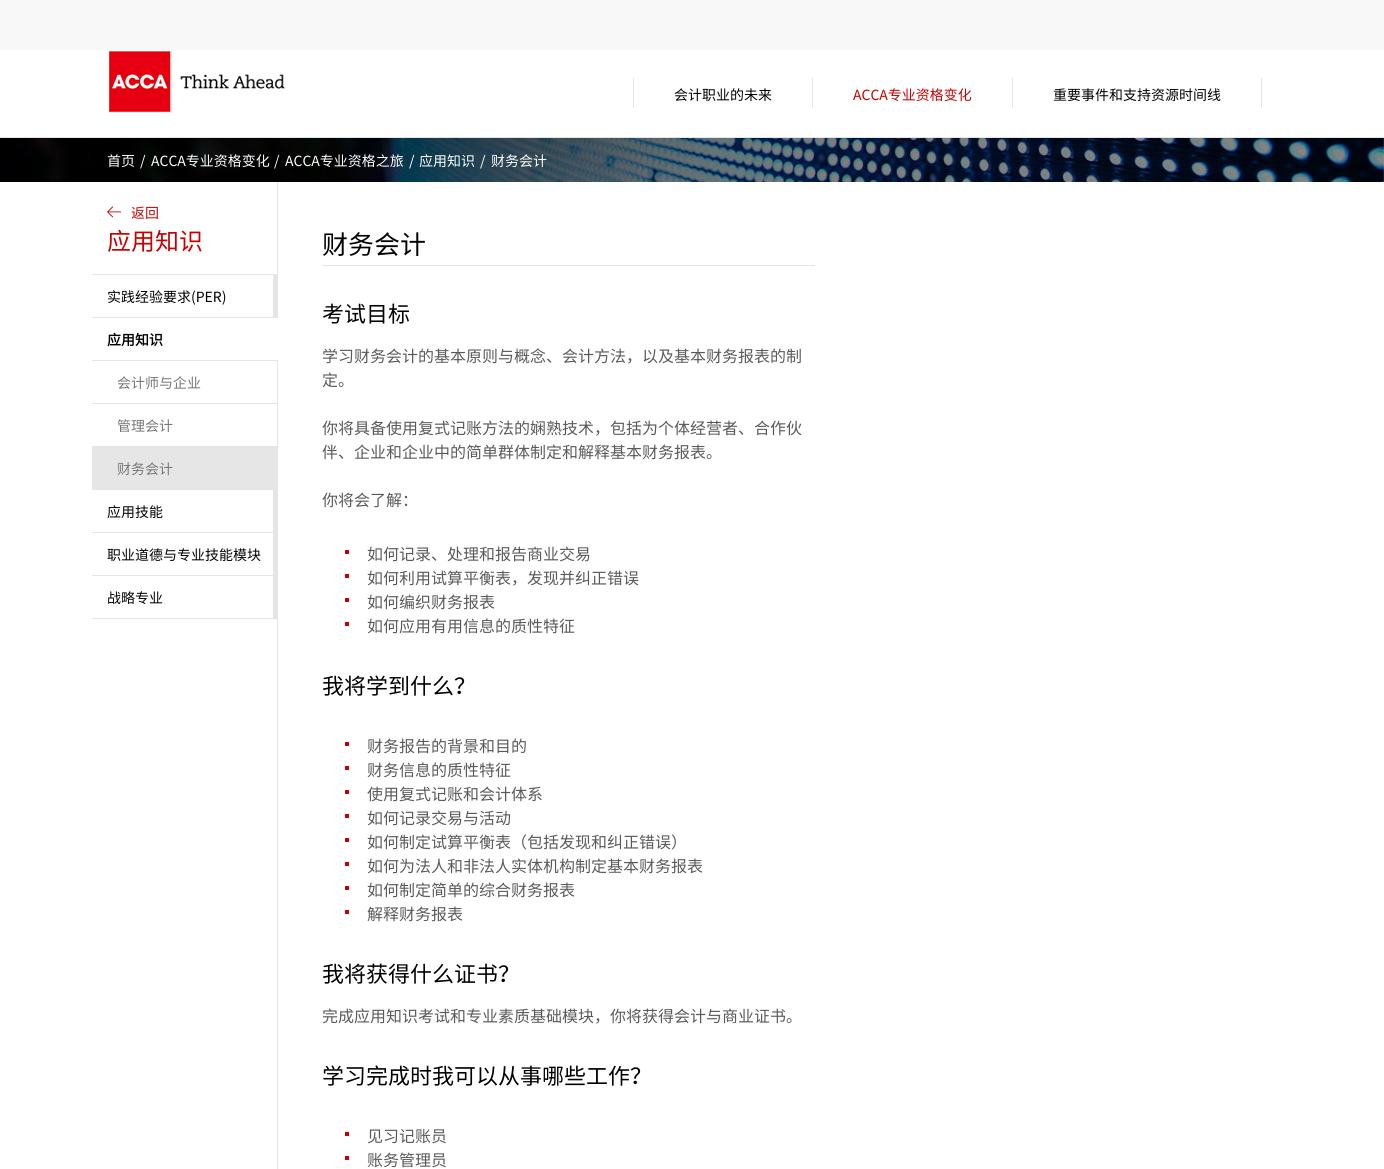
#include <cairo.h>
#include <math.h>
#include <stddef.h>

typedef struct { double x, y; const char *s; } line_t;
typedef struct { double x, y, w, h; unsigned color; } box_t;

static void ink(cairo_t *ctx, unsigned color) {
    cairo_set_source_rgb(ctx, (color >> 16) / 255.0, (color >> 8 & 255) / 255.0, (color & 255) / 255.0);
}

static void paste(cairo_t *ctx, const char *path, double x, double y, double w, double h) {
    cairo_surface_t *image = cairo_image_surface_create_from_png(path);
    cairo_save(ctx);
    cairo_set_source_surface(ctx, image, x, y);
    cairo_rectangle(ctx, x, y, w, h);
    cairo_fill(ctx);
    cairo_restore(ctx);
    cairo_surface_destroy(image);
}

int main(void) {
    cairo_surface_t *surface = cairo_image_surface_create(CAIRO_FORMAT_RGB24, 1384, 1169);
    cairo_t *ctx = cairo_create(surface);
    cairo_font_options_t *options = cairo_font_options_create();
    cairo_font_options_set_hint_metrics(options, CAIRO_HINT_METRICS_OFF);
    cairo_font_options_set_hint_style(options, CAIRO_HINT_STYLE_NONE);
    cairo_set_font_options(ctx, options);
    cairo_set_miter_limit(ctx, 4);
    ink(ctx, 0xFFFFFF);
    cairo_paint(ctx);
    ink(ctx, 0xF8F8F8);
    cairo_rectangle(ctx, 0, 0, 1384, 50);
    cairo_fill(ctx);
    ink(ctx, 0xE5E5E5);
    cairo_rectangle(ctx, 0, 137, 1384, 1);
    cairo_fill(ctx);
    paste(ctx, "media/1.png", 109, 50, 176, 63);
    cairo_rectangle(ctx, 812, 78, 1, 30);
    cairo_fill(ctx);
    cairo_rectangle(ctx, 633, 78, 1, 30);
    cairo_fill(ctx);
    cairo_select_font_face(ctx, "Noto Sans SC", CAIRO_FONT_SLANT_NORMAL, CAIRO_FONT_WEIGHT_NORMAL);
    cairo_set_font_size(ctx, 14);
    ink(ctx, 0x000000);
    cairo_move_to(ctx, 674, 100);
    cairo_show_text(ctx, "会计职业的未来");
    ink(ctx, 0xE5E5E5);
    cairo_rectangle(ctx, 1012, 78, 1, 30);
    cairo_fill(ctx);
    ink(ctx, 0xC80000);
    cairo_move_to(ctx, 853, 100);
    cairo_show_text(ctx, "ACCA专业资格变化");
    ink(ctx, 0xE5E5E5);
    cairo_rectangle(ctx, 1261, 78, 1, 30);
    cairo_fill(ctx);
    ink(ctx, 0x000000);
    cairo_move_to(ctx, 1053, 100);
    cairo_show_text(ctx, "重要事件和支持资源时间线");
    paste(ctx, "media/2.png", 0, 138, 1384, 44);
    ink(ctx, 0xFFFFFF);
    {
        static const line_t items[] = {
            {107, 166, "首页"},
            {140, 166, "/"},
            {151, 166, "ACCA专业资格变化"},
            {274, 166, "/"},
            {285, 166, "ACCA专业资格之旅"},
            {409, 166, "/"},
            {419, 166, "应用知识"},
            {480, 166, "/"},
            {491, 166, "财务会计"},
        };
        for (size_t i = 0; i < sizeof items / sizeof *items; i++) {
            cairo_move_to(ctx, items[i].x, items[i].y);
            cairo_show_text(ctx, items[i].s);
        }
    }
    ink(ctx, 0xE5E5E5);
    cairo_rectangle(ctx, 92, 274, 185, 1);
    cairo_fill(ctx);
    paste(ctx, "media/3.png", 107, 206, 14, 12);
    ink(ctx, 0xC80000);
    cairo_move_to(ctx, 131, 218);
    cairo_show_text(ctx, "返回");
    cairo_set_font_size(ctx, 24);
    cairo_move_to(ctx, 107, 250);
    cairo_show_text(ctx, "应用知识");
    ink(ctx, 0xE5E5E5);
    cairo_rectangle(ctx, 273, 275, 4, 43);
    cairo_fill(ctx);
    cairo_rectangle(ctx, 92, 317, 185, 1);
    cairo_fill(ctx);
    cairo_set_font_size(ctx, 14);
    ink(ctx, 0x000000);
    cairo_move_to(ctx, 107, 302);
    cairo_show_text(ctx, "实践经验要求(PER)");
    {
        static const box_t items[] = {
            {277, 182, 1, 987, 0xE5E5E5},
            {277, 318, 1, 43, 0xFFFFFF},
            {92, 360, 186, 1, 0xE5E5E5},
        };
        for (size_t i = 0; i < sizeof items / sizeof *items; i++) {
            ink(ctx, items[i].color);
            cairo_rectangle(ctx, items[i].x, items[i].y, items[i].w, items[i].h);
            cairo_fill(ctx);
        }
    }
    cairo_select_font_face(ctx, "Noto Sans SC", CAIRO_FONT_SLANT_NORMAL, CAIRO_FONT_WEIGHT_BOLD);
    ink(ctx, 0x000000);
    cairo_move_to(ctx, 107, 345);
    cairo_show_text(ctx, "应用知识");
    ink(ctx, 0xE5E5E5);
    cairo_rectangle(ctx, 92, 403, 185, 1);
    cairo_fill(ctx);
    cairo_select_font_face(ctx, "Noto Sans SC", CAIRO_FONT_SLANT_NORMAL, CAIRO_FONT_WEIGHT_NORMAL);
    ink(ctx, 0x747678);
    cairo_move_to(ctx, 117, 388);
    cairo_show_text(ctx, "会计师与企业");
    ink(ctx, 0xE5E5E5);
    cairo_rectangle(ctx, 92, 446, 185, 1);
    cairo_fill(ctx);
    ink(ctx, 0x747678);
    cairo_move_to(ctx, 117, 431);
    cairo_show_text(ctx, "管理会计");
    ink(ctx, 0xE6E6E6);
    cairo_rectangle(ctx, 92, 447, 185, 43);
    cairo_fill(ctx);
    ink(ctx, 0x747678);
    cairo_move_to(ctx, 117, 474);
    cairo_show_text(ctx, "财务会计");
    ink(ctx, 0xE5E5E5);
    cairo_rectangle(ctx, 273, 490, 4, 129);
    cairo_fill(ctx);
    cairo_rectangle(ctx, 92, 532, 185, 1);
    cairo_fill(ctx);
    ink(ctx, 0x000000);
    cairo_move_to(ctx, 107, 517);
    cairo_show_text(ctx, "应用技能");
    ink(ctx, 0xE5E5E5);
    cairo_rectangle(ctx, 92, 575, 185, 1);
    cairo_fill(ctx);
    ink(ctx, 0x000000);
    cairo_move_to(ctx, 107, 560);
    cairo_show_text(ctx, "职业道德与专业技能模块");
    ink(ctx, 0xE5E5E5);
    cairo_rectangle(ctx, 92, 618, 185, 1);
    cairo_fill(ctx);
    ink(ctx, 0x000000);
    cairo_move_to(ctx, 107, 603);
    cairo_show_text(ctx, "战略专业");
    cairo_set_font_size(ctx, 26);
    cairo_move_to(ctx, 322, 254);
    cairo_show_text(ctx, "财务会计");
    ink(ctx, 0xE5E5E5);
    cairo_rectangle(ctx, 322, 265, 493, 1);
    cairo_fill(ctx);
    cairo_set_font_size(ctx, 22);
    ink(ctx, 0x000000);
    cairo_move_to(ctx, 322, 322);
    cairo_show_text(ctx, "考试目标");
    cairo_set_font_size(ctx, 16);
    ink(ctx, 0x595959);
    {
        static const line_t items[] = {
            {322, 362, "学习财务会计的基本原则与概念、会计方法，以及基本财务报表的制"},
            {322, 386, "定。"},
            {322, 434, "你将具备使用复式记账方法的娴熟技术，包括为个体经营者、合作伙"},
            {322, 458, "伴、企业和企业中的简单群体制定和解释基本财务报表。"},
            {322, 506, "你将会了解："},
        };
        for (size_t i = 0; i < sizeof items / sizeof *items; i++) {
            cairo_move_to(ctx, items[i].x, items[i].y);
            cairo_show_text(ctx, items[i].s);
        }
    }
    ink(ctx, 0xC80000);
    cairo_rectangle(ctx, 345, 550, 4, 4);
    cairo_fill(ctx);
    ink(ctx, 0x595959);
    cairo_move_to(ctx, 367, 560);
    cairo_show_text(ctx, "如何记录、处理和报告商业交易");
    ink(ctx, 0xC80000);
    cairo_rectangle(ctx, 345, 574, 4, 4);
    cairo_fill(ctx);
    ink(ctx, 0x595959);
    cairo_move_to(ctx, 367, 584);
    cairo_show_text(ctx, "如何利用试算平衡表，发现并纠正错误");
    ink(ctx, 0xC80000);
    cairo_rectangle(ctx, 345, 598, 4, 4);
    cairo_fill(ctx);
    ink(ctx, 0x595959);
    cairo_move_to(ctx, 367, 608);
    cairo_show_text(ctx, "如何编织财务报表");
    ink(ctx, 0xC80000);
    cairo_rectangle(ctx, 345, 622, 4, 4);
    cairo_fill(ctx);
    ink(ctx, 0x595959);
    cairo_move_to(ctx, 367, 632);
    cairo_show_text(ctx, "如何应用有用信息的质性特征");
    cairo_set_font_size(ctx, 22);
    ink(ctx, 0x000000);
    cairo_move_to(ctx, 322, 694);
    cairo_show_text(ctx, "我将学到什么？");
    ink(ctx, 0xC80000);
    cairo_rectangle(ctx, 345, 742, 4, 4);
    cairo_fill(ctx);
    cairo_set_font_size(ctx, 16);
    ink(ctx, 0x595959);
    cairo_move_to(ctx, 367, 752);
    cairo_show_text(ctx, "财务报告的背景和目的");
    ink(ctx, 0xC80000);
    cairo_rectangle(ctx, 345, 766, 4, 4);
    cairo_fill(ctx);
    ink(ctx, 0x595959);
    cairo_move_to(ctx, 367, 776);
    cairo_show_text(ctx, "财务信息的质性特征");
    ink(ctx, 0xC80000);
    cairo_rectangle(ctx, 345, 790, 4, 4);
    cairo_fill(ctx);
    ink(ctx, 0x595959);
    cairo_move_to(ctx, 367, 800);
    cairo_show_text(ctx, "使用复式记账和会计体系");
    ink(ctx, 0xC80000);
    cairo_rectangle(ctx, 345, 814, 4, 4);
    cairo_fill(ctx);
    ink(ctx, 0x595959);
    cairo_move_to(ctx, 367, 824);
    cairo_show_text(ctx, "如何记录交易与活动");
    ink(ctx, 0xC80000);
    cairo_rectangle(ctx, 345, 838, 4, 4);
    cairo_fill(ctx);
    ink(ctx, 0x595959);
    cairo_move_to(ctx, 367, 848);
    cairo_show_text(ctx, "如何制定试算平衡表（包括发现和纠正错误）");
    ink(ctx, 0xC80000);
    cairo_rectangle(ctx, 345, 862, 4, 4);
    cairo_fill(ctx);
    ink(ctx, 0x595959);
    cairo_move_to(ctx, 367, 872);
    cairo_show_text(ctx, "如何为法人和非法人实体机构制定基本财务报表");
    ink(ctx, 0xC80000);
    cairo_rectangle(ctx, 345, 886, 4, 4);
    cairo_fill(ctx);
    ink(ctx, 0x595959);
    cairo_move_to(ctx, 367, 896);
    cairo_show_text(ctx, "如何制定简单的综合财务报表");
    ink(ctx, 0xC80000);
    cairo_rectangle(ctx, 345, 910, 4, 4);
    cairo_fill(ctx);
    ink(ctx, 0x595959);
    cairo_move_to(ctx, 367, 920);
    cairo_show_text(ctx, "解释财务报表");
    cairo_set_font_size(ctx, 22);
    ink(ctx, 0x000000);
    cairo_move_to(ctx, 322, 982);
    cairo_show_text(ctx, "我将获得什么证书？");
    cairo_set_font_size(ctx, 16);
    ink(ctx, 0x595959);
    cairo_move_to(ctx, 322, 1022);
    cairo_show_text(ctx, "完成应用知识考试和专业素质基础模块，你将获得会计与商业证书。");
    cairo_set_font_size(ctx, 22);
    ink(ctx, 0x000000);
    cairo_move_to(ctx, 322, 1084);
    cairo_show_text(ctx, "学习完成时我可以从事哪些工作？");
    ink(ctx, 0xC80000);
    cairo_rectangle(ctx, 345, 1132, 4, 4);
    cairo_fill(ctx);
    cairo_set_font_size(ctx, 16);
    ink(ctx, 0x595959);
    cairo_move_to(ctx, 367, 1142);
    cairo_show_text(ctx, "见习记账员");
    ink(ctx, 0xC80000);
    cairo_rectangle(ctx, 345, 1156, 4, 4);
    cairo_fill(ctx);
    ink(ctx, 0x595959);
    cairo_move_to(ctx, 367, 1166);
    cairo_show_text(ctx, "账务管理员");
    cairo_surface_write_to_png(surface, "image.png");
    cairo_font_options_destroy(options);
    cairo_destroy(ctx);
    cairo_surface_destroy(surface);
    return 0;
}
